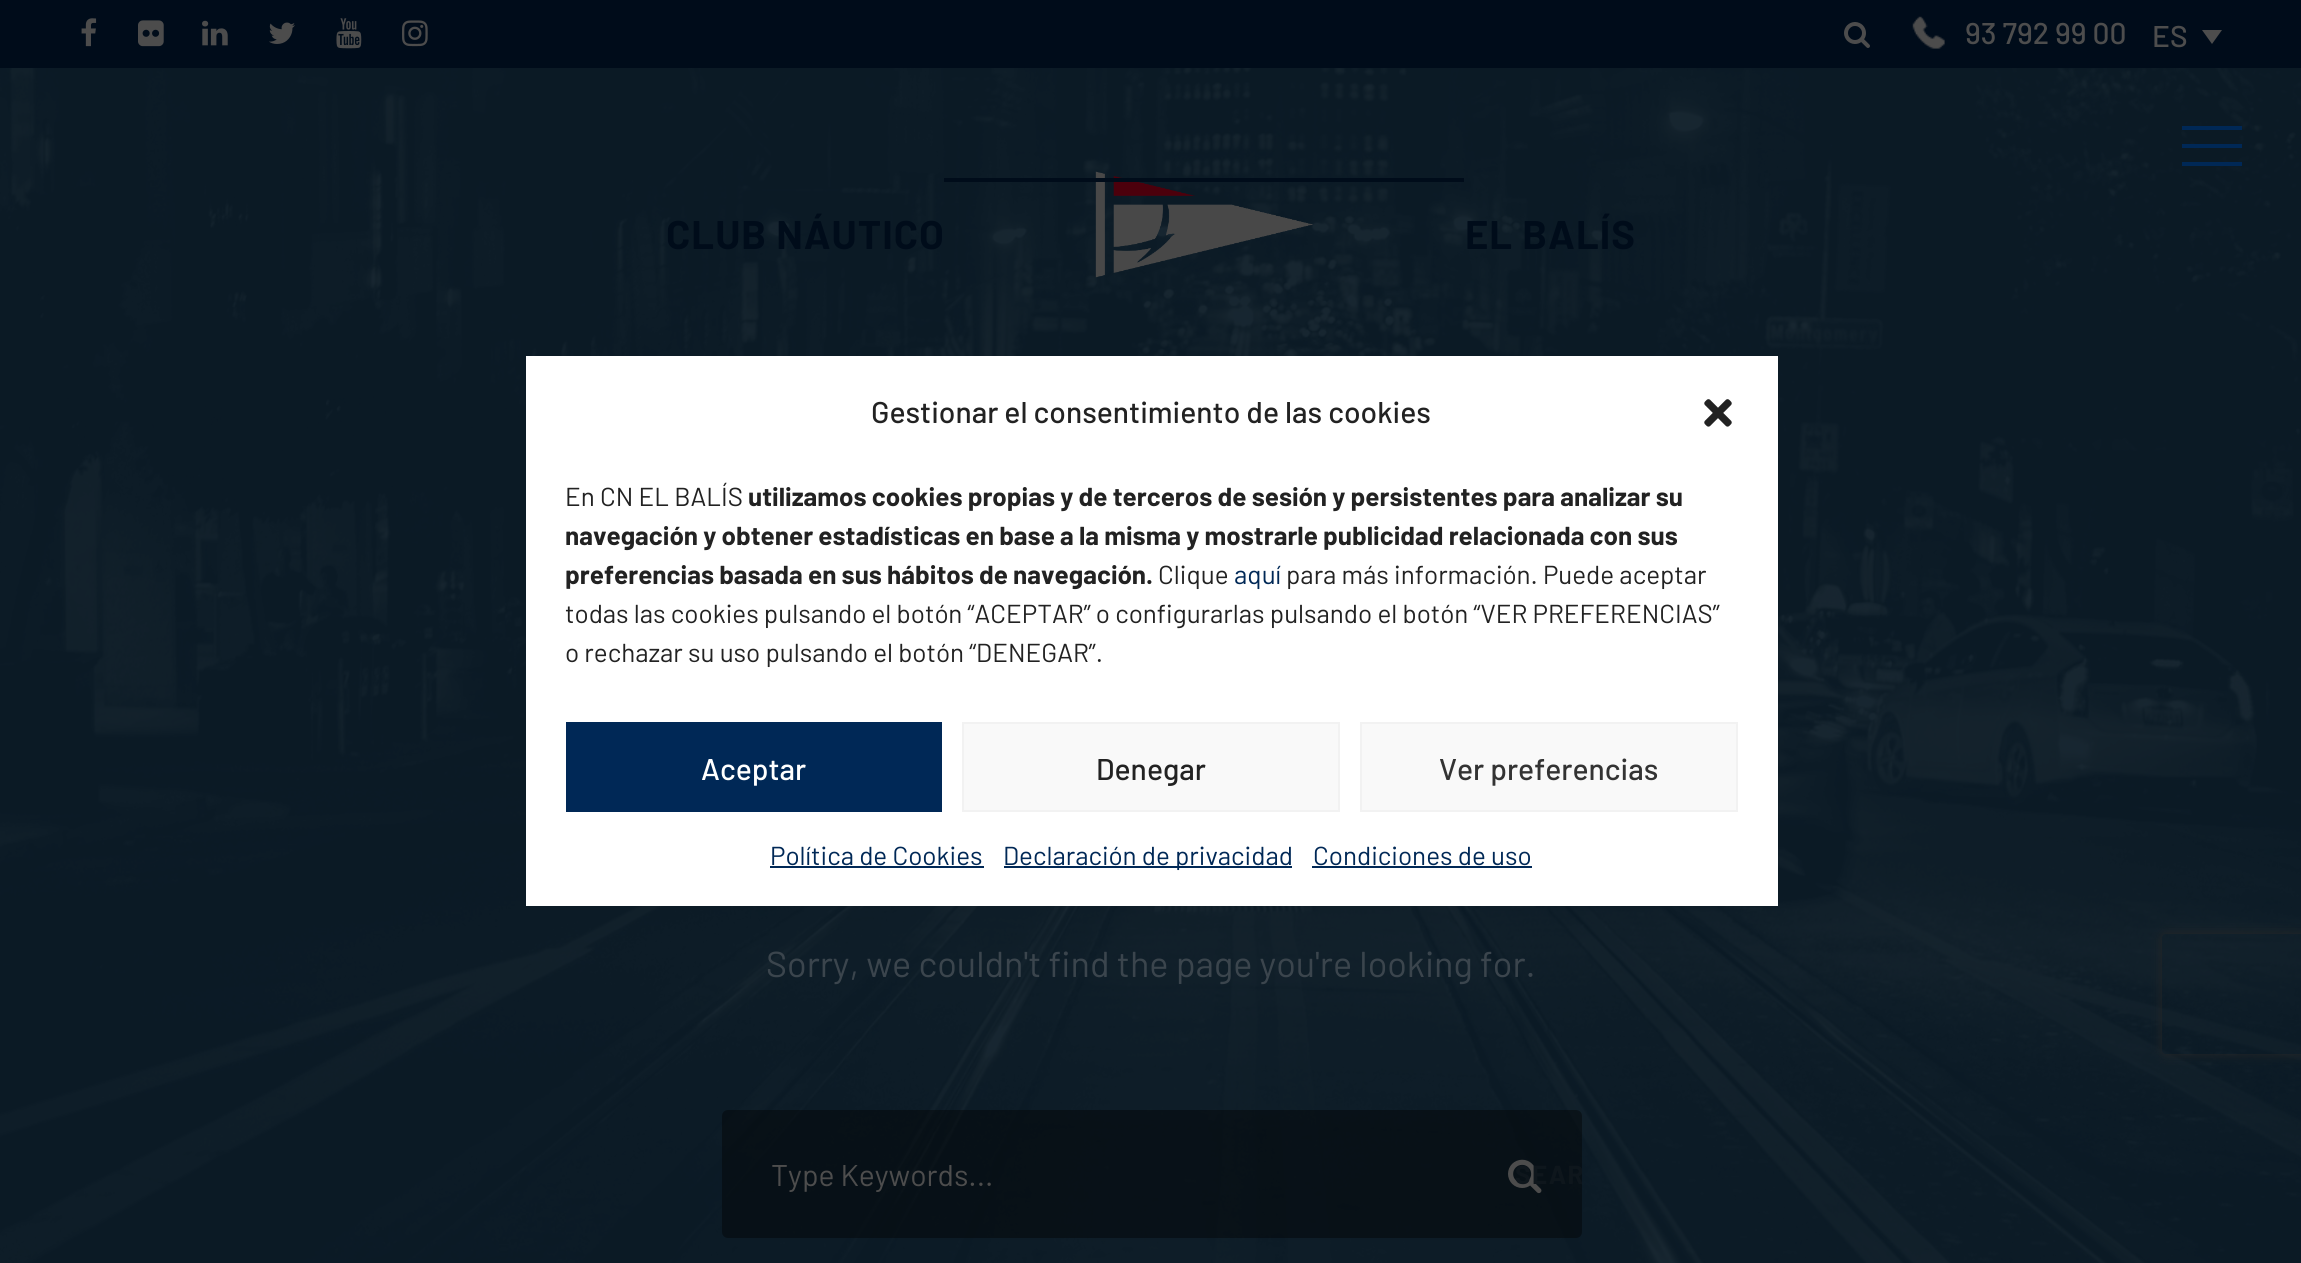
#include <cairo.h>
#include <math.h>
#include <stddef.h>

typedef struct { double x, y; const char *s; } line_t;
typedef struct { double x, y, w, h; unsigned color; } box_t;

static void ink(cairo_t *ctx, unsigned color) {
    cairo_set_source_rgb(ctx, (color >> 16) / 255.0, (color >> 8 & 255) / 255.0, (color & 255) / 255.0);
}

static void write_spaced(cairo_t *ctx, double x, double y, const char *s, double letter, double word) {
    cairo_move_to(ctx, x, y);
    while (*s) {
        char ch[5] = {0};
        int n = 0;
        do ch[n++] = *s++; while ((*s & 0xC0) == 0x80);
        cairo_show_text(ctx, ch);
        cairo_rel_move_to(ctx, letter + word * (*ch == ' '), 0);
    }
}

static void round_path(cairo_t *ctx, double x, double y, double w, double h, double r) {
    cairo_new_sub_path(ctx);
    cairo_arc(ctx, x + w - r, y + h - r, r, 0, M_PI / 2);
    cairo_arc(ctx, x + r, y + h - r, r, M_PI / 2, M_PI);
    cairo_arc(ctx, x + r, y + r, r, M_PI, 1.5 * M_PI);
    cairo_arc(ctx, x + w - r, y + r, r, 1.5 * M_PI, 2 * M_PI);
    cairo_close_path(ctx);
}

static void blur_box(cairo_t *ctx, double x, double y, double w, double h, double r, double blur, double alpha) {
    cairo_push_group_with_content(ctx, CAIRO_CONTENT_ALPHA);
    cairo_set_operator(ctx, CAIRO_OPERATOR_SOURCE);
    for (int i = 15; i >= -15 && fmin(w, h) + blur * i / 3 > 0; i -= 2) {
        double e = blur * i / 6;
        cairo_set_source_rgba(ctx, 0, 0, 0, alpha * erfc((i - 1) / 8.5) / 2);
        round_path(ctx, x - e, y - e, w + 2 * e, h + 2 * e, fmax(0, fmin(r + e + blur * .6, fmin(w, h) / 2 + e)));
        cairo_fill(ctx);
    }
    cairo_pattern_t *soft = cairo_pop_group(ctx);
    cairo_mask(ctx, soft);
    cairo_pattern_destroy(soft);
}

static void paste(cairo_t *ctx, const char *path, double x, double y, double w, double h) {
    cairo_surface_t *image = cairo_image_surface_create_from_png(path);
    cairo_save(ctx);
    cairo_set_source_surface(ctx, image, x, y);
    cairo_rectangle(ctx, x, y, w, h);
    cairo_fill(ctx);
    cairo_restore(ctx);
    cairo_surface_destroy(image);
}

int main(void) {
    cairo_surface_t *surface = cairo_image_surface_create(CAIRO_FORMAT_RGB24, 2301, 1263);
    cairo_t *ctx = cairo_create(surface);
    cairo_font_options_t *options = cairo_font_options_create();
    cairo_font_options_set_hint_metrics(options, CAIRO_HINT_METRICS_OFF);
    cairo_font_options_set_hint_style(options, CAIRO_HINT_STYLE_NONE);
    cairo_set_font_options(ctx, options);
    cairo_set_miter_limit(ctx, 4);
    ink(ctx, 0x0B1D2B);
    cairo_paint(ctx);
    ink(ctx, 0x000C1A);
    cairo_rectangle(ctx, 0, 0, 2301, 68);
    cairo_fill(ctx);
    paste(ctx, "media/1.png", 81, 18, 16, 29);
    paste(ctx, "media/2.png", 138, 20, 26, 27);
    paste(ctx, "media/3.png", 202, 20, 26, 26);
    paste(ctx, "media/4.png", 269, 22, 26, 22);
    paste(ctx, "media/5.png", 336, 18, 26, 31);
    paste(ctx, "media/6.png", 402, 20, 26, 27);
    paste(ctx, "media/7.png", 1844, 22, 26, 26);
    paste(ctx, "media/8.png", 1912, 16, 33, 33);
    cairo_select_font_face(ctx, "Barlow Medium", CAIRO_FONT_SLANT_NORMAL, CAIRO_FONT_WEIGHT_NORMAL);
    cairo_set_font_size(ctx, 30);
    ink(ctx, 0x4D4D4D);
    cairo_move_to(ctx, 1965, 44);
    cairo_show_text(ctx, "93 792 99 00");
    cairo_move_to(ctx, 2152, 47);
    cairo_show_text(ctx, "ES");
    cairo_new_path(ctx);
    cairo_move_to(ctx, 2202, 30);
    cairo_line_to(ctx, 2222, 30);
    cairo_line_to(ctx, 2212, 44);
    cairo_close_path(ctx);
    cairo_fill(ctx);
    paste(ctx, "media/10.png", 0, 68, 2301, 1195);
    paste(ctx, "media/9.png", 1095, 171, 218, 107);
    ink(ctx, 0x000C1A);
    cairo_rectangle(ctx, 944, 178, 520, 4);
    cairo_fill(ctx);
    cairo_select_font_face(ctx, "Barlow", CAIRO_FONT_SLANT_NORMAL, CAIRO_FONT_WEIGHT_BOLD);
    cairo_set_font_size(ctx, 40);
    write_spaced(ctx, 666, 249, "CLUB NÁUTICO", 1, 0);
    write_spaced(ctx, 1465, 249, "EL BALÍS", 1, 0);
    cairo_select_font_face(ctx, "Barlow", CAIRO_FONT_SLANT_NORMAL, CAIRO_FONT_WEIGHT_NORMAL);
    cairo_set_font_size(ctx, 36);
    ink(ctx, 0x3B454D);
    cairo_move_to(ctx, 766, 977);
    cairo_show_text(ctx, "Sorry, we couldn't find the page you're looking for.");
    cairo_set_source_rgba(ctx, 0, 0, 0, 0.4);
    round_path(ctx, 722, 1110, 860, 128, 6);
    cairo_fill(ctx);
    cairo_set_font_size(ctx, 30);
    ink(ctx, 0x4D4D4D);
    cairo_move_to(ctx, 771, 1186);
    cairo_show_text(ctx, "Type Keywords...");
    paste(ctx, "media/11.png", 1508, 1159, 34, 35);
    cairo_save(ctx);
    cairo_rectangle(ctx, 1450, 1110, 132, 128);
    cairo_clip(ctx);
    cairo_select_font_face(ctx, "Barlow", CAIRO_FONT_SLANT_NORMAL, CAIRO_FONT_WEIGHT_BOLD);
    cairo_set_font_size(ctx, 26);
    ink(ctx, 0x0E161C);
    write_spaced(ctx, 1515, 1184, "SEAR", 1.5, 0);
    cairo_restore(ctx);
    {
        static const box_t items[] = {
            {2182, 126, 60, 4, 0x002856},
            {2182, 144, 60, 4, 0x002856},
            {2182, 162, 60, 4, 0x002856},
            {526, 356, 1252, 550, 0xFFFFFF},
        };
        for (size_t i = 0; i < sizeof items / sizeof *items; i++) {
            ink(ctx, items[i].color);
            cairo_rectangle(ctx, items[i].x, items[i].y, items[i].w, items[i].h);
            cairo_fill(ctx);
        }
    }
    cairo_select_font_face(ctx, "Barlow Medium", CAIRO_FONT_SLANT_NORMAL, CAIRO_FONT_WEIGHT_NORMAL);
    ink(ctx, 0x222222);
    cairo_move_to(ctx, 871, 423);
    cairo_show_text(ctx, "Gestionar el consentimiento de las cookies");
    paste(ctx, "media/12.png", 1704, 399, 28, 28);
    cairo_select_font_face(ctx, "Barlow", CAIRO_FONT_SLANT_NORMAL, CAIRO_FONT_WEIGHT_NORMAL);
    cairo_set_font_size(ctx, 26);
    cairo_move_to(ctx, 565, 506);
    cairo_show_text(ctx, "En CN EL BALÍS");
    cairo_select_font_face(ctx, "Barlow", CAIRO_FONT_SLANT_NORMAL, CAIRO_FONT_WEIGHT_BOLD);
    {
        static const line_t items[] = {
            {748, 506, "utilizamos cookies propias y de terceros de sesión y persistentes para analizar su"},
            {565, 545, "navegación y obtener estadísticas en base a la misma y mostrarle publicidad relacionada con sus"},
            {565, 584, "preferencias basada en sus hábitos de navegación."},
        };
        for (size_t i = 0; i < sizeof items / sizeof *items; i++) {
            cairo_move_to(ctx, items[i].x, items[i].y);
            cairo_show_text(ctx, items[i].s);
        }
    }
    cairo_select_font_face(ctx, "Barlow", CAIRO_FONT_SLANT_NORMAL, CAIRO_FONT_WEIGHT_NORMAL);
    cairo_move_to(ctx, 1158, 584);
    cairo_show_text(ctx, "Clique");
    ink(ctx, 0x002856);
    cairo_move_to(ctx, 1234, 584);
    cairo_show_text(ctx, "aquí");
    ink(ctx, 0x222222);
    {
        static const line_t items[] = {
            {1286, 584, "para más información. Puede aceptar"},
            {565, 623, "todas las cookies pulsando el botón “ACEPTAR” o configurarlas pulsando el botón “VER PREFERENCIAS”"},
            {565, 662, "o rechazar su uso pulsando el botón “DENEGAR”."},
        };
        for (size_t i = 0; i < sizeof items / sizeof *items; i++) {
            cairo_move_to(ctx, items[i].x, items[i].y);
            cairo_show_text(ctx, items[i].s);
        }
    }
    ink(ctx, 0x002856);
    cairo_rectangle(ctx, 566, 722, 376, 90);
    cairo_fill(ctx);
    cairo_select_font_face(ctx, "Barlow Medium", CAIRO_FONT_SLANT_NORMAL, CAIRO_FONT_WEIGHT_NORMAL);
    cairo_set_font_size(ctx, 30);
    ink(ctx, 0xFFFFFF);
    cairo_move_to(ctx, 701, 780);
    cairo_show_text(ctx, "Aceptar");
    ink(ctx, 0xF9F9F9);
    cairo_rectangle(ctx, 963, 723, 376, 88);
    cairo_fill_preserve(ctx);
    ink(ctx, 0xF2F2F2);
    cairo_stroke(ctx);
    ink(ctx, 0x222222);
    cairo_move_to(ctx, 1096, 780);
    cairo_show_text(ctx, "Denegar");
    ink(ctx, 0xF9F9F9);
    cairo_rectangle(ctx, 1361, 723, 376, 88);
    cairo_fill_preserve(ctx);
    ink(ctx, 0xF2F2F2);
    cairo_stroke(ctx);
    ink(ctx, 0x333333);
    cairo_move_to(ctx, 1439, 780);
    cairo_show_text(ctx, "Ver preferencias");
    cairo_select_font_face(ctx, "Barlow", CAIRO_FONT_SLANT_NORMAL, CAIRO_FONT_WEIGHT_NORMAL);
    cairo_set_font_size(ctx, 26);
    ink(ctx, 0x002856);
    cairo_move_to(ctx, 770, 865);
    cairo_show_text(ctx, "Política de Cookies");
    cairo_rectangle(ctx, 770, 866, 214, 2);
    cairo_fill(ctx);
    cairo_rectangle(ctx, 1004, 866, 288, 2);
    cairo_fill(ctx);
    cairo_move_to(ctx, 1003, 865);
    cairo_show_text(ctx, "Declaración de privacidad");
    cairo_move_to(ctx, 1313, 865);
    cairo_show_text(ctx, "Condiciones de uso");
    cairo_rectangle(ctx, 1312, 866, 220, 2);
    cairo_fill(ctx);
    cairo_save(ctx);
    cairo_set_fill_rule(ctx, CAIRO_FILL_RULE_EVEN_ODD);
    cairo_new_path(ctx);
    cairo_move_to(ctx, 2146, 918);
    cairo_line_to(ctx, 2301, 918);
    cairo_line_to(ctx, 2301, 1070);
    cairo_line_to(ctx, 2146, 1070);
    cairo_close_path(ctx);
    cairo_move_to(ctx, 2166, 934);
    cairo_line_to(ctx, 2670, 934);
    cairo_curve_to(ctx, 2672, 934, 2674, 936, 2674, 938);
    cairo_line_to(ctx, 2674, 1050);
    cairo_curve_to(ctx, 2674, 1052, 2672, 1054, 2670, 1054);
    cairo_line_to(ctx, 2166, 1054);
    cairo_curve_to(ctx, 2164, 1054, 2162, 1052, 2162, 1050);
    cairo_line_to(ctx, 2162, 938);
    cairo_curve_to(ctx, 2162, 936, 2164, 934, 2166, 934);
    cairo_close_path(ctx);
    cairo_clip(ctx);
    ink(ctx, 0x262626);
    blur_box(ctx, 2162, 934, 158, 120, 4, 5, 1);
    cairo_restore(ctx);
    cairo_surface_write_to_png(surface, "image.png");
    cairo_font_options_destroy(options);
    cairo_destroy(ctx);
    cairo_surface_destroy(surface);
    return 0;
}
